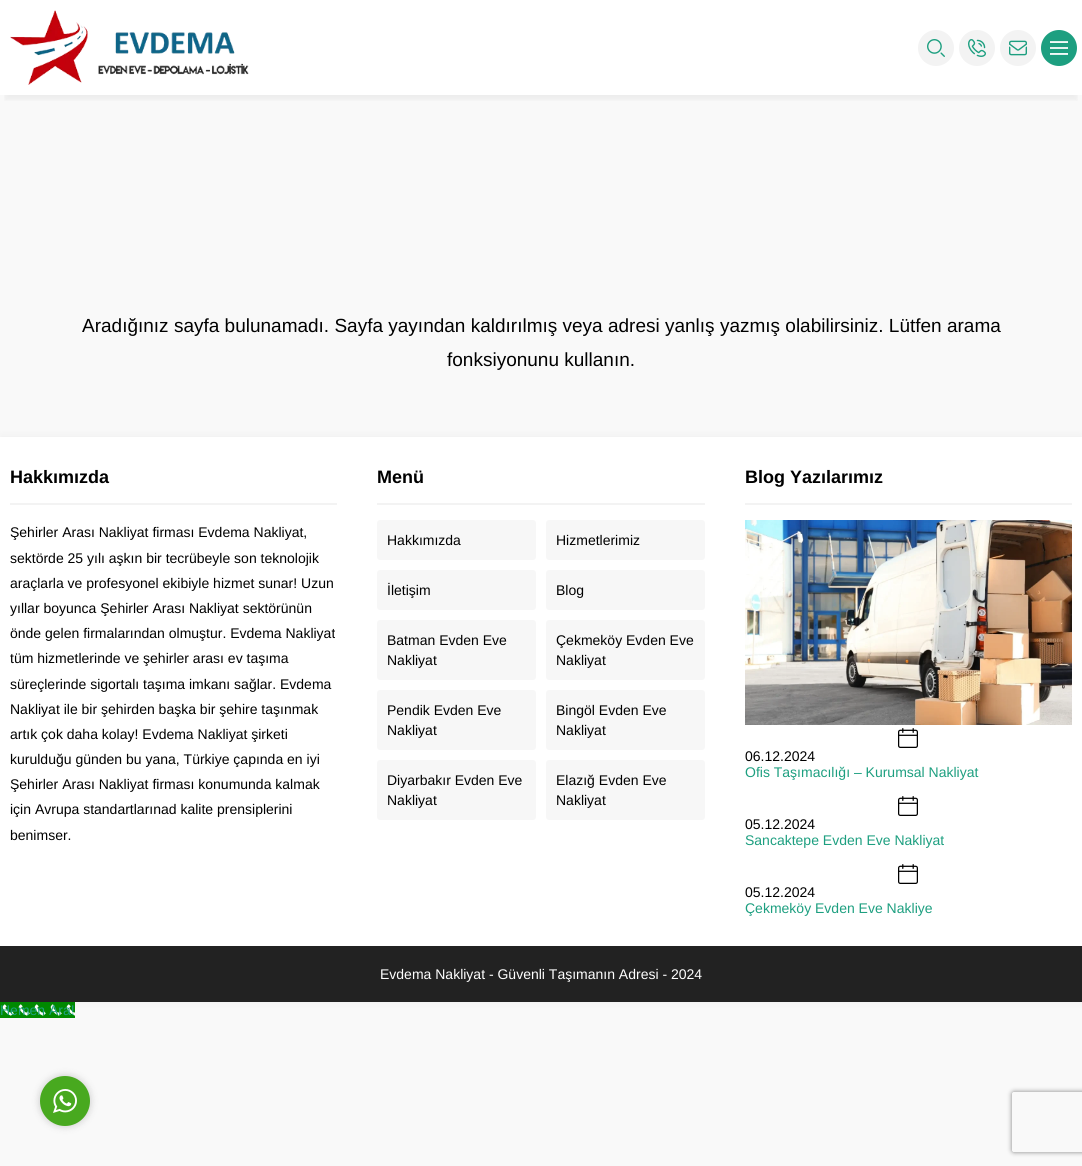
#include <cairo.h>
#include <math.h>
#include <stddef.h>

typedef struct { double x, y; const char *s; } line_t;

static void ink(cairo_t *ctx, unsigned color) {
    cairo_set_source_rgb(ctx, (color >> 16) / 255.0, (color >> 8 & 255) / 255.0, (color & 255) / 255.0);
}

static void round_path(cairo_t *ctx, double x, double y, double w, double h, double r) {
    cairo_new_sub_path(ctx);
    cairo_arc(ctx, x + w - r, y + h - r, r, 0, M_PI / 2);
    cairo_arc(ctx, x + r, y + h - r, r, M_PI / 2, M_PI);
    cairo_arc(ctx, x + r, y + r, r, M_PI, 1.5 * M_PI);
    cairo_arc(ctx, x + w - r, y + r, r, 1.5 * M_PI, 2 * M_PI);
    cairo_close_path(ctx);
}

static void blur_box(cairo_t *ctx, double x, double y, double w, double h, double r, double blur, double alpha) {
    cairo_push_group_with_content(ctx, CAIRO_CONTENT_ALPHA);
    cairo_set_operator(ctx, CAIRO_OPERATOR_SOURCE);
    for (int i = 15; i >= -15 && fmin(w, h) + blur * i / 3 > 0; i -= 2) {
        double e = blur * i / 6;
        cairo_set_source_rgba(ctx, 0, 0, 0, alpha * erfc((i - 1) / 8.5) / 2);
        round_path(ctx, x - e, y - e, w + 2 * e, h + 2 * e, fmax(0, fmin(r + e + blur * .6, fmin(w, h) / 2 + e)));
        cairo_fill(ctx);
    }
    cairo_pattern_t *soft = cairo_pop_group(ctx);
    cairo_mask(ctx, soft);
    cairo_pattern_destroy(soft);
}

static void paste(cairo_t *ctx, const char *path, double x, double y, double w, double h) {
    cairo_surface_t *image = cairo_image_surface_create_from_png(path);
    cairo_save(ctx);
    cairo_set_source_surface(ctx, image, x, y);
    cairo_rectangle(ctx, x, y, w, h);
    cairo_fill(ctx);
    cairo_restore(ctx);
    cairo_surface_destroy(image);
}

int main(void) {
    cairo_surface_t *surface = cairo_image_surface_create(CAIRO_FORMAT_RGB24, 1082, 1166);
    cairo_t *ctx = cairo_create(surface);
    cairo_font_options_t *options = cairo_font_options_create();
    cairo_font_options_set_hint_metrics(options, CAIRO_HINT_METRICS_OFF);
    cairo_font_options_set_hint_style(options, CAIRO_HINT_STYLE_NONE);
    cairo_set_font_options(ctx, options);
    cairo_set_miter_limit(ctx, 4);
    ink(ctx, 0xF9F9F9);
    cairo_paint(ctx);
    ink(ctx, 0xFFFFFF);
    cairo_rectangle(ctx, 0, 0, 1082, 95);
    cairo_fill(ctx);
    cairo_save(ctx);
    cairo_rectangle(ctx, 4, 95, 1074, 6);
    cairo_clip(ctx);
    ink(ctx, 0x000000);
    blur_box(ctx, 5, 15, 1072, 85, 0, 2.5, 0.05);
    cairo_restore(ctx);
    paste(ctx, "media/1.png", 10, 10, 239, 75);
    ink(ctx, 0xF3F3F3);
    cairo_arc(ctx, 936, 48, 18, 0, 2 * M_PI);
    cairo_fill(ctx);
    paste(ctx, "media/2.png", 927, 39, 18, 18);
    cairo_arc(ctx, 977, 48, 18, 0, 2 * M_PI);
    cairo_fill(ctx);
    paste(ctx, "media/3.png", 968, 39, 18, 18);
    cairo_arc(ctx, 1018, 48, 18, 0, 2 * M_PI);
    cairo_fill(ctx);
    paste(ctx, "media/4.png", 1009, 40, 18, 16);
    ink(ctx, 0x1D9F80);
    cairo_arc(ctx, 1059, 48, 18, 0, 2 * M_PI);
    cairo_fill(ctx);
    paste(ctx, "media/5.png", 1050, 41, 18, 14);
    cairo_select_font_face(ctx, "Liberation Sans", CAIRO_FONT_SLANT_NORMAL, CAIRO_FONT_WEIGHT_NORMAL);
    cairo_set_font_size(ctx, 19);
    ink(ctx, 0x000000);
    cairo_move_to(ctx, 82, 332);
    cairo_show_text(ctx, "Aradığınız sayfa bulunamadı. Sayfa yayından kaldırılmış veya adresi yanlış yazmış olabilirsiniz. Lütfen arama");
    cairo_move_to(ctx, 447, 366);
    cairo_show_text(ctx, "fonksiyonunu kullanın.");
    ink(ctx, 0x008A00);
    cairo_rectangle(ctx, 0, 1002, 75, 16);
    cairo_fill(ctx);
    paste(ctx, "media/8.png", 2, 1004, 73, 12);
    ink(ctx, 0x000000);
    blur_box(ctx, 0, 437, 1082, 565, 0, 5, 0.05);
    ink(ctx, 0xFFFFFF);
    cairo_rectangle(ctx, 0, 437, 1082, 509);
    cairo_fill(ctx);
    ink(ctx, 0xF3F3F3);
    cairo_rectangle(ctx, 10, 503, 327, 2);
    cairo_fill(ctx);
    cairo_select_font_face(ctx, "Liberation Sans", CAIRO_FONT_SLANT_NORMAL, CAIRO_FONT_WEIGHT_BOLD);
    cairo_set_font_size(ctx, 18);
    ink(ctx, 0x000000);
    cairo_move_to(ctx, 10, 483);
    cairo_show_text(ctx, "Hakkımızda");
    cairo_select_font_face(ctx, "Liberation Sans", CAIRO_FONT_SLANT_NORMAL, CAIRO_FONT_WEIGHT_NORMAL);
    cairo_set_font_size(ctx, 14);
    {
        static const line_t items[] = {
            {10, 537, "Şehirler Arası Nakliyat firması Evdema Nakliyat,"},
            {10, 563, "sektörde 25 yılı aşkın bir tecrübeyle son teknolojik"},
            {10, 588, "araçlarla ve profesyonel ekibiyle hizmet sunar! Uzun"},
            {10, 613, "yıllar boyunca Şehirler Arası Nakliyat sektörünün"},
            {10, 638, "önde gelen firmalarından olmuştur. Evdema Nakliyat"},
            {10, 663, "tüm hizmetlerinde ve şehirler arası ev taşıma"},
            {10, 689, "süreçlerinde sigortalı taşıma imkanı sağlar. Evdema"},
            {10, 714, "Nakliyat ile bir şehirden başka bir şehire taşınmak"},
            {10, 739, "artık çok daha kolay! Evdema Nakliyat şirketi"},
            {10, 764, "kurulduğu günden bu yana, Türkiye çapında en iyi"},
            {10, 789, "Şehirler Arası Nakliyat firması konumunda kalmak"},
            {10, 814, "için Avrupa standartlarınad kalite prensiplerini"},
            {10, 840, "benimser."},
        };
        for (size_t i = 0; i < sizeof items / sizeof *items; i++) {
            cairo_move_to(ctx, items[i].x, items[i].y);
            cairo_show_text(ctx, items[i].s);
        }
    }
    ink(ctx, 0xF3F3F3);
    cairo_rectangle(ctx, 377, 503, 328, 2);
    cairo_fill(ctx);
    cairo_select_font_face(ctx, "Liberation Sans", CAIRO_FONT_SLANT_NORMAL, CAIRO_FONT_WEIGHT_BOLD);
    cairo_set_font_size(ctx, 18);
    ink(ctx, 0x000000);
    cairo_move_to(ctx, 377, 483);
    cairo_show_text(ctx, "Menü");
    ink(ctx, 0xF7F7F7);
    round_path(ctx, 377, 520, 159, 40, 3);
    cairo_fill(ctx);
    cairo_select_font_face(ctx, "Liberation Sans", CAIRO_FONT_SLANT_NORMAL, CAIRO_FONT_WEIGHT_NORMAL);
    cairo_set_font_size(ctx, 14);
    ink(ctx, 0x000000);
    cairo_move_to(ctx, 387, 545);
    cairo_show_text(ctx, "Hakkımızda");
    ink(ctx, 0xF7F7F7);
    round_path(ctx, 546, 520, 159, 40, 3);
    cairo_fill(ctx);
    ink(ctx, 0x000000);
    cairo_move_to(ctx, 556, 545);
    cairo_show_text(ctx, "Hizmetlerimiz");
    ink(ctx, 0xF7F7F7);
    round_path(ctx, 377, 570, 159, 40, 3);
    cairo_fill(ctx);
    ink(ctx, 0x000000);
    cairo_move_to(ctx, 387, 595);
    cairo_show_text(ctx, "İletişim");
    ink(ctx, 0xF7F7F7);
    round_path(ctx, 546, 570, 159, 40, 3);
    cairo_fill(ctx);
    ink(ctx, 0x000000);
    cairo_move_to(ctx, 556, 595);
    cairo_show_text(ctx, "Blog");
    ink(ctx, 0xF7F7F7);
    round_path(ctx, 377, 620, 159, 60, 3);
    cairo_fill(ctx);
    ink(ctx, 0x000000);
    cairo_move_to(ctx, 387, 645);
    cairo_show_text(ctx, "Batman Evden Eve");
    cairo_move_to(ctx, 387, 665);
    cairo_show_text(ctx, "Nakliyat");
    ink(ctx, 0xF7F7F7);
    round_path(ctx, 546, 620, 159, 60, 3);
    cairo_fill(ctx);
    ink(ctx, 0x000000);
    cairo_move_to(ctx, 556, 645);
    cairo_show_text(ctx, "Çekmeköy Evden Eve");
    cairo_move_to(ctx, 556, 665);
    cairo_show_text(ctx, "Nakliyat");
    ink(ctx, 0xF7F7F7);
    round_path(ctx, 377, 690, 159, 60, 3);
    cairo_fill(ctx);
    ink(ctx, 0x000000);
    cairo_move_to(ctx, 387, 715);
    cairo_show_text(ctx, "Pendik Evden Eve");
    cairo_move_to(ctx, 387, 735);
    cairo_show_text(ctx, "Nakliyat");
    ink(ctx, 0xF7F7F7);
    round_path(ctx, 546, 690, 159, 60, 3);
    cairo_fill(ctx);
    ink(ctx, 0x000000);
    cairo_move_to(ctx, 556, 715);
    cairo_show_text(ctx, "Bingöl Evden Eve");
    cairo_move_to(ctx, 556, 735);
    cairo_show_text(ctx, "Nakliyat");
    ink(ctx, 0xF7F7F7);
    round_path(ctx, 377, 760, 159, 60, 3);
    cairo_fill(ctx);
    ink(ctx, 0x000000);
    cairo_move_to(ctx, 387, 785);
    cairo_show_text(ctx, "Diyarbakır Evden Eve");
    cairo_move_to(ctx, 387, 805);
    cairo_show_text(ctx, "Nakliyat");
    ink(ctx, 0xF7F7F7);
    round_path(ctx, 546, 760, 159, 60, 3);
    cairo_fill(ctx);
    ink(ctx, 0x000000);
    cairo_move_to(ctx, 556, 785);
    cairo_show_text(ctx, "Elazığ Evden Eve");
    cairo_move_to(ctx, 556, 805);
    cairo_show_text(ctx, "Nakliyat");
    ink(ctx, 0xF3F3F3);
    cairo_rectangle(ctx, 745, 503, 327, 2);
    cairo_fill(ctx);
    cairo_select_font_face(ctx, "Liberation Sans", CAIRO_FONT_SLANT_NORMAL, CAIRO_FONT_WEIGHT_BOLD);
    cairo_set_font_size(ctx, 18);
    ink(ctx, 0x000000);
    cairo_move_to(ctx, 745, 483);
    cairo_show_text(ctx, "Blog Yazılarımız");
    paste(ctx, "media/6.png", 745, 520, 327, 205);
    paste(ctx, "media/7.png", 898, 728, 20, 20);
    cairo_select_font_face(ctx, "Liberation Sans", CAIRO_FONT_SLANT_NORMAL, CAIRO_FONT_WEIGHT_NORMAL);
    cairo_set_font_size(ctx, 14);
    cairo_move_to(ctx, 745, 761);
    cairo_show_text(ctx, "06.12.2024");
    ink(ctx, 0x1D9F80);
    cairo_move_to(ctx, 745, 777);
    cairo_show_text(ctx, "Ofis Taşımacılığı – Kurumsal Nakliyat");
    paste(ctx, "media/7.png", 898, 796, 20, 20);
    ink(ctx, 0x000000);
    cairo_move_to(ctx, 745, 829);
    cairo_show_text(ctx, "05.12.2024");
    ink(ctx, 0x1D9F80);
    cairo_move_to(ctx, 745, 845);
    cairo_show_text(ctx, "Sancaktepe Evden Eve Nakliyat");
    paste(ctx, "media/7.png", 898, 864, 20, 20);
    ink(ctx, 0x000000);
    cairo_move_to(ctx, 745, 897);
    cairo_show_text(ctx, "05.12.2024");
    ink(ctx, 0x1D9F80);
    cairo_move_to(ctx, 745, 913);
    cairo_show_text(ctx, "Çekmeköy Evden Eve Nakliye");
    ink(ctx, 0x222222);
    cairo_rectangle(ctx, 0, 946, 1082, 56);
    cairo_fill(ctx);
    ink(ctx, 0xFFFFFF);
    cairo_move_to(ctx, 380, 979);
    cairo_show_text(ctx, "Evdema Nakliyat - Güvenli Taşımanın Adresi - 2024");
    ink(ctx, 0x1D9F80);
    cairo_move_to(ctx, 0, 1015);
    cairo_show_text(ctx, "Hemen Ara!");
    ink(ctx, 0x000000);
    blur_box(ctx, 40, 1076, 50, 50, 25, 4, 0.2);
    ink(ctx, 0x48A91F);
    cairo_arc(ctx, 65, 1101, 25, 0, 2 * M_PI);
    cairo_fill(ctx);
    paste(ctx, "media/9.png", 53, 1089, 24, 24);
    cairo_save(ctx);
    cairo_set_fill_rule(ctx, CAIRO_FILL_RULE_EVEN_ODD);
    cairo_new_path(ctx);
    cairo_move_to(ctx, 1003, 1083);
    cairo_line_to(ctx, 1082, 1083);
    cairo_line_to(ctx, 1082, 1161);
    cairo_line_to(ctx, 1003, 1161);
    cairo_close_path(ctx);
    cairo_move_to(ctx, 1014, 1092);
    cairo_line_to(ctx, 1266, 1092);
    cairo_curve_to(ctx, 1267, 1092, 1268, 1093, 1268, 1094);
    cairo_line_to(ctx, 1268, 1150);
    cairo_curve_to(ctx, 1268, 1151, 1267, 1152, 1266, 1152);
    cairo_line_to(ctx, 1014, 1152);
    cairo_curve_to(ctx, 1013, 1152, 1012, 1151, 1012, 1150);
    cairo_line_to(ctx, 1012, 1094);
    cairo_curve_to(ctx, 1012, 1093, 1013, 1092, 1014, 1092);
    cairo_close_path(ctx);
    cairo_clip(ctx);
    ink(ctx, 0x808080);
    blur_box(ctx, 1012, 1092, 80, 60, 2, 2.5, 1);
    cairo_restore(ctx);
    cairo_surface_write_to_png(surface, "image.png");
    cairo_font_options_destroy(options);
    cairo_destroy(ctx);
    cairo_surface_destroy(surface);
    return 0;
}
